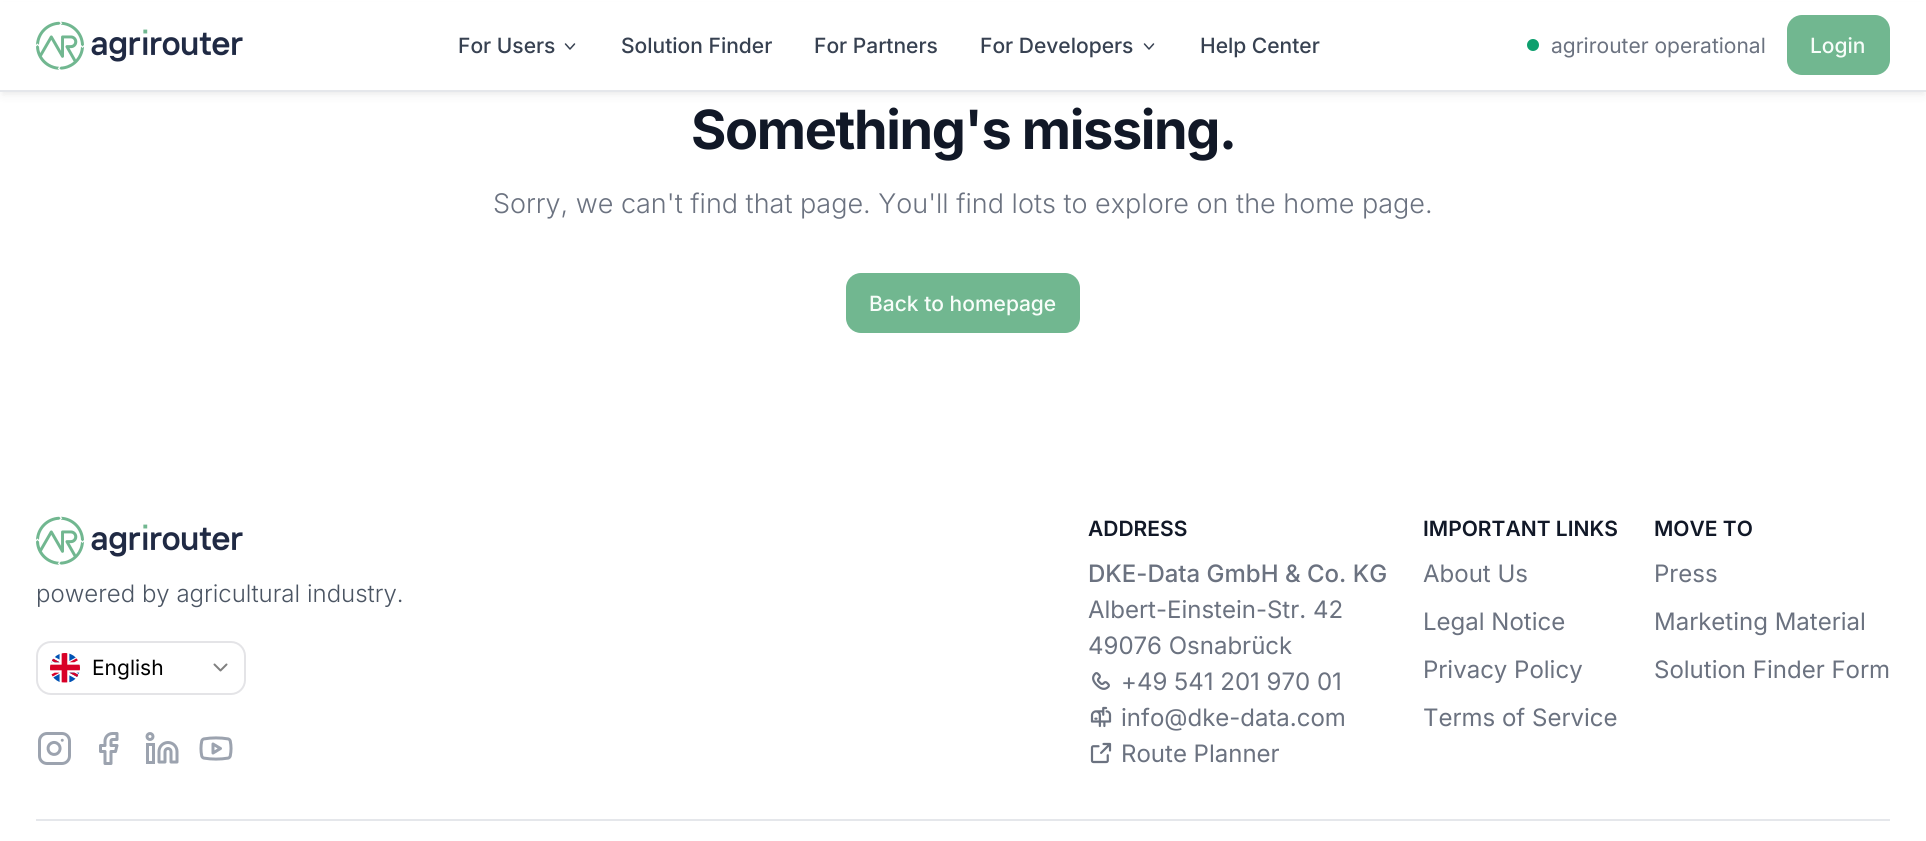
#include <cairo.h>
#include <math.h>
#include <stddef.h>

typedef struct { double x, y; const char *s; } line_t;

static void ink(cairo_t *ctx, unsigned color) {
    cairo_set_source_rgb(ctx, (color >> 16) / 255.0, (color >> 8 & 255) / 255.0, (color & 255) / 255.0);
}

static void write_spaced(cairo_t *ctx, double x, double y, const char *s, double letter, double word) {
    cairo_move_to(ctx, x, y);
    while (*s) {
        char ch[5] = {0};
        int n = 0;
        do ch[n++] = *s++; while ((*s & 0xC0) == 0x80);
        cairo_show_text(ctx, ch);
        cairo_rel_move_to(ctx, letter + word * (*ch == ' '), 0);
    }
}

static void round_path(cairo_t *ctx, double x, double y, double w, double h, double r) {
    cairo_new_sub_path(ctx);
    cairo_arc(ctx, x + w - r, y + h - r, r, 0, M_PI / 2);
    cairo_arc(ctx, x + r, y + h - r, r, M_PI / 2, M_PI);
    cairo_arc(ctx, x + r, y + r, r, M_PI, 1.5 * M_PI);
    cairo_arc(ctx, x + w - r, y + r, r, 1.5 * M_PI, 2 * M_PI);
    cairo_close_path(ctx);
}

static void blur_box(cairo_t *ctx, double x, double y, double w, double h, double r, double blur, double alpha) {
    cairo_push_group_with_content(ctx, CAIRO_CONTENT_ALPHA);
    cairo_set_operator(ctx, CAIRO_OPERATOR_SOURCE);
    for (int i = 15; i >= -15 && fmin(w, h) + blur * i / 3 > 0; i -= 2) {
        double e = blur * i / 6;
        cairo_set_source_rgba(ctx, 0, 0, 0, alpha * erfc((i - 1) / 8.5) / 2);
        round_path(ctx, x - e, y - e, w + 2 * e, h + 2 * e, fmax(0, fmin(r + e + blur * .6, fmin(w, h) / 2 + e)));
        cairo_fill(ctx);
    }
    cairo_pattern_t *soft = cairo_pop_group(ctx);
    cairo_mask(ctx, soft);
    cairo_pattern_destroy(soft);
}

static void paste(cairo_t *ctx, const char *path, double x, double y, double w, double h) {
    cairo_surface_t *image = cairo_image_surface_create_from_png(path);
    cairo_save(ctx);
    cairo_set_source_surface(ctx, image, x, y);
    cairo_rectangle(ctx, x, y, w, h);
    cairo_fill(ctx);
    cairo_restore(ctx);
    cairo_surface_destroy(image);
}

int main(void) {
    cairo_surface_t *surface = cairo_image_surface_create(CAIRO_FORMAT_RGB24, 1926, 841);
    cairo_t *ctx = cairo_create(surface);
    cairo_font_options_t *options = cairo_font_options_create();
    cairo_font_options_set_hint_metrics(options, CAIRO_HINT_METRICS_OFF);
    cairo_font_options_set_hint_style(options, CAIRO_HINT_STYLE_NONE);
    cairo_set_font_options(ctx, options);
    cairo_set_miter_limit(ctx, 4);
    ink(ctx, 0xFFFFFF);
    cairo_paint(ctx);
    ink(ctx, 0x000000);
    blur_box(ctx, 3, 6, 1920, 86, 0, 3, 0.05);
    blur_box(ctx, 2, 8, 1923, 88, 0, 4.5, 0.05);
    ink(ctx, 0xFFFFFF);
    cairo_rectangle(ctx, 0, 2, 1926, 88);
    cairo_fill(ctx);
    ink(ctx, 0xE5E7EB);
    cairo_rectangle(ctx, 0, 90, 1926, 2);
    cairo_fill(ctx);
    paste(ctx, "media/1.png", 36, 21, 207, 49);
    cairo_select_font_face(ctx, "Inter Medium", CAIRO_FONT_SLANT_NORMAL, CAIRO_FONT_WEIGHT_NORMAL);
    cairo_set_font_size(ctx, 21);
    ink(ctx, 0x374151);
    cairo_move_to(ctx, 458, 53);
    cairo_show_text(ctx, "For Users");
    cairo_new_path(ctx);
    cairo_move_to(ctx, 565.5, 44);
    cairo_line_to(ctx, 570, 49);
    cairo_line_to(ctx, 574.5, 44);
    cairo_set_line_width(ctx, 1.5);
    cairo_set_line_cap(ctx, CAIRO_LINE_CAP_ROUND);
    cairo_set_line_join(ctx, CAIRO_LINE_JOIN_ROUND);
    cairo_stroke(ctx);
    {
        static const line_t items[] = {
            {621, 53, "Solution Finder"},
            {814, 53, "For Partners"},
            {980, 53, "For Developers"},
        };
        for (size_t i = 0; i < sizeof items / sizeof *items; i++) {
            cairo_move_to(ctx, items[i].x, items[i].y);
            cairo_show_text(ctx, items[i].s);
        }
    }
    cairo_new_path(ctx);
    cairo_move_to(ctx, 1144.5, 44);
    cairo_line_to(ctx, 1149, 49);
    cairo_line_to(ctx, 1153.5, 44);
    cairo_stroke(ctx);
    cairo_move_to(ctx, 1200, 53);
    cairo_show_text(ctx, "Help Center");
    ink(ctx, 0x0E9F6E);
    cairo_new_path(ctx);
    cairo_arc(ctx, 1533, 45, 6, 0, 2 * M_PI);
    cairo_fill(ctx);
    cairo_select_font_face(ctx, "Inter", CAIRO_FONT_SLANT_NORMAL, CAIRO_FONT_WEIGHT_NORMAL);
    ink(ctx, 0x6B7280);
    cairo_move_to(ctx, 1551, 53);
    cairo_show_text(ctx, "agrirouter operational");
    ink(ctx, 0x71B790);
    round_path(ctx, 1787, 15, 103, 60, 15);
    cairo_fill(ctx);
    cairo_select_font_face(ctx, "Inter Medium", CAIRO_FONT_SLANT_NORMAL, CAIRO_FONT_WEIGHT_NORMAL);
    ink(ctx, 0xF7FDF9);
    cairo_move_to(ctx, 1810, 53);
    cairo_show_text(ctx, "Login");
    cairo_select_font_face(ctx, "Inter", CAIRO_FONT_SLANT_NORMAL, CAIRO_FONT_WEIGHT_BOLD);
    cairo_set_font_size(ctx, 54);
    ink(ctx, 0x111827);
    write_spaced(ctx, 691, 149, "Something's missing.", -1.35, 0);
    cairo_select_font_face(ctx, "Inter Light", CAIRO_FONT_SLANT_NORMAL, CAIRO_FONT_WEIGHT_NORMAL);
    cairo_set_font_size(ctx, 27);
    ink(ctx, 0x6B7280);
    cairo_move_to(ctx, 493, 213);
    cairo_show_text(ctx, "Sorry, we can't find that page. You'll find lots to explore on the home page.");
    ink(ctx, 0x71B790);
    round_path(ctx, 846, 273, 234, 60, 15);
    cairo_fill(ctx);
    cairo_select_font_face(ctx, "Inter Medium", CAIRO_FONT_SLANT_NORMAL, CAIRO_FONT_WEIGHT_NORMAL);
    cairo_set_font_size(ctx, 21);
    ink(ctx, 0xF7FDF9);
    cairo_move_to(ctx, 869, 311);
    cairo_show_text(ctx, "Back to homepage");
    paste(ctx, "media/1.png", 36, 516, 207, 49);
    cairo_select_font_face(ctx, "Inter Light", CAIRO_FONT_SLANT_NORMAL, CAIRO_FONT_WEIGHT_NORMAL);
    cairo_set_font_size(ctx, 24);
    ink(ctx, 0x4B5563);
    cairo_move_to(ctx, 36, 602);
    cairo_show_text(ctx, "powered by agricultural industry.");
    round_path(ctx, 37, 642, 208, 52, 14);
    ink(ctx, 0xE4E4E7);
    cairo_set_line_width(ctx, 2);
    cairo_set_line_cap(ctx, CAIRO_LINE_CAP_BUTT);
    cairo_set_line_join(ctx, CAIRO_LINE_JOIN_MITER);
    cairo_stroke(ctx);
    paste(ctx, "media/2.png", 50, 653, 30, 30);
    cairo_select_font_face(ctx, "Inter", CAIRO_FONT_SLANT_NORMAL, CAIRO_FONT_WEIGHT_NORMAL);
    cairo_set_font_size(ctx, 21);
    ink(ctx, 0x000000);
    cairo_move_to(ctx, 92, 675);
    cairo_show_text(ctx, "English");
    cairo_new_path(ctx);
    cairo_move_to(ctx, 214.5, 664.5);
    cairo_line_to(ctx, 220.5, 670.5);
    cairo_line_to(ctx, 226.5, 664.5);
    ink(ctx, 0x808080);
    cairo_set_line_cap(ctx, CAIRO_LINE_CAP_ROUND);
    cairo_set_line_join(ctx, CAIRO_LINE_JOIN_ROUND);
    cairo_stroke(ctx);
    paste(ctx, "media/3.png", 38, 732, 33, 33);
    paste(ctx, "media/4.png", 99, 732, 20, 33);
    paste(ctx, "media/5.png", 145, 732, 34, 32);
    paste(ctx, "media/6.png", 199, 736, 34, 25);
    cairo_select_font_face(ctx, "Inter SemiBold", CAIRO_FONT_SLANT_NORMAL, CAIRO_FONT_WEIGHT_NORMAL);
    ink(ctx, 0x111827);
    cairo_move_to(ctx, 1088, 536);
    cairo_show_text(ctx, "ADDRESS");
    cairo_select_font_face(ctx, "Inter Medium", CAIRO_FONT_SLANT_NORMAL, CAIRO_FONT_WEIGHT_NORMAL);
    cairo_set_font_size(ctx, 24);
    ink(ctx, 0x6B7280);
    cairo_move_to(ctx, 1088, 582);
    cairo_show_text(ctx, "DKE-Data GmbH & Co. KG");
    cairo_select_font_face(ctx, "Inter", CAIRO_FONT_SLANT_NORMAL, CAIRO_FONT_WEIGHT_NORMAL);
    cairo_move_to(ctx, 1088, 618);
    cairo_show_text(ctx, "Albert-Einstein-Str. 42");
    cairo_move_to(ctx, 1088, 654);
    cairo_show_text(ctx, "49076 Osnabrück");
    paste(ctx, "media/7.png", 1092, 672, 18, 18);
    cairo_move_to(ctx, 1121, 690);
    cairo_show_text(ctx, "+49 541 201 970 01");
    paste(ctx, "media/8.png", 1090, 706, 22, 22);
    cairo_move_to(ctx, 1121, 726);
    cairo_show_text(ctx, "info@dke-data.com");
    paste(ctx, "media/9.png", 1090, 742, 22, 22);
    cairo_move_to(ctx, 1121, 762);
    cairo_show_text(ctx, "Route Planner");
    cairo_select_font_face(ctx, "Inter SemiBold", CAIRO_FONT_SLANT_NORMAL, CAIRO_FONT_WEIGHT_NORMAL);
    cairo_set_font_size(ctx, 21);
    ink(ctx, 0x111827);
    cairo_move_to(ctx, 1423, 536);
    cairo_show_text(ctx, "IMPORTANT LINKS");
    cairo_select_font_face(ctx, "Inter", CAIRO_FONT_SLANT_NORMAL, CAIRO_FONT_WEIGHT_NORMAL);
    cairo_set_font_size(ctx, 24);
    ink(ctx, 0x6B7280);
    {
        static const line_t items[] = {
            {1423, 582, "About Us"},
            {1423, 630, "Legal Notice"},
            {1423, 678, "Privacy Policy"},
            {1423, 726, "Terms of Service"},
        };
        for (size_t i = 0; i < sizeof items / sizeof *items; i++) {
            cairo_move_to(ctx, items[i].x, items[i].y);
            cairo_show_text(ctx, items[i].s);
        }
    }
    cairo_select_font_face(ctx, "Inter SemiBold", CAIRO_FONT_SLANT_NORMAL, CAIRO_FONT_WEIGHT_NORMAL);
    cairo_set_font_size(ctx, 21);
    ink(ctx, 0x111827);
    cairo_move_to(ctx, 1654, 536);
    cairo_show_text(ctx, "MOVE TO");
    cairo_select_font_face(ctx, "Inter", CAIRO_FONT_SLANT_NORMAL, CAIRO_FONT_WEIGHT_NORMAL);
    cairo_set_font_size(ctx, 24);
    ink(ctx, 0x6B7280);
    {
        static const line_t items[] = {
            {1654, 582, "Press"},
            {1654, 630, "Marketing Material"},
            {1654, 678, "Solution Finder Form"},
        };
        for (size_t i = 0; i < sizeof items / sizeof *items; i++) {
            cairo_move_to(ctx, items[i].x, items[i].y);
            cairo_show_text(ctx, items[i].s);
        }
    }
    ink(ctx, 0xE5E7EB);
    cairo_rectangle(ctx, 36, 819, 1854, 2);
    cairo_fill(ctx);
    cairo_surface_write_to_png(surface, "image.png");
    cairo_font_options_destroy(options);
    cairo_destroy(ctx);
    cairo_surface_destroy(surface);
    return 0;
}
